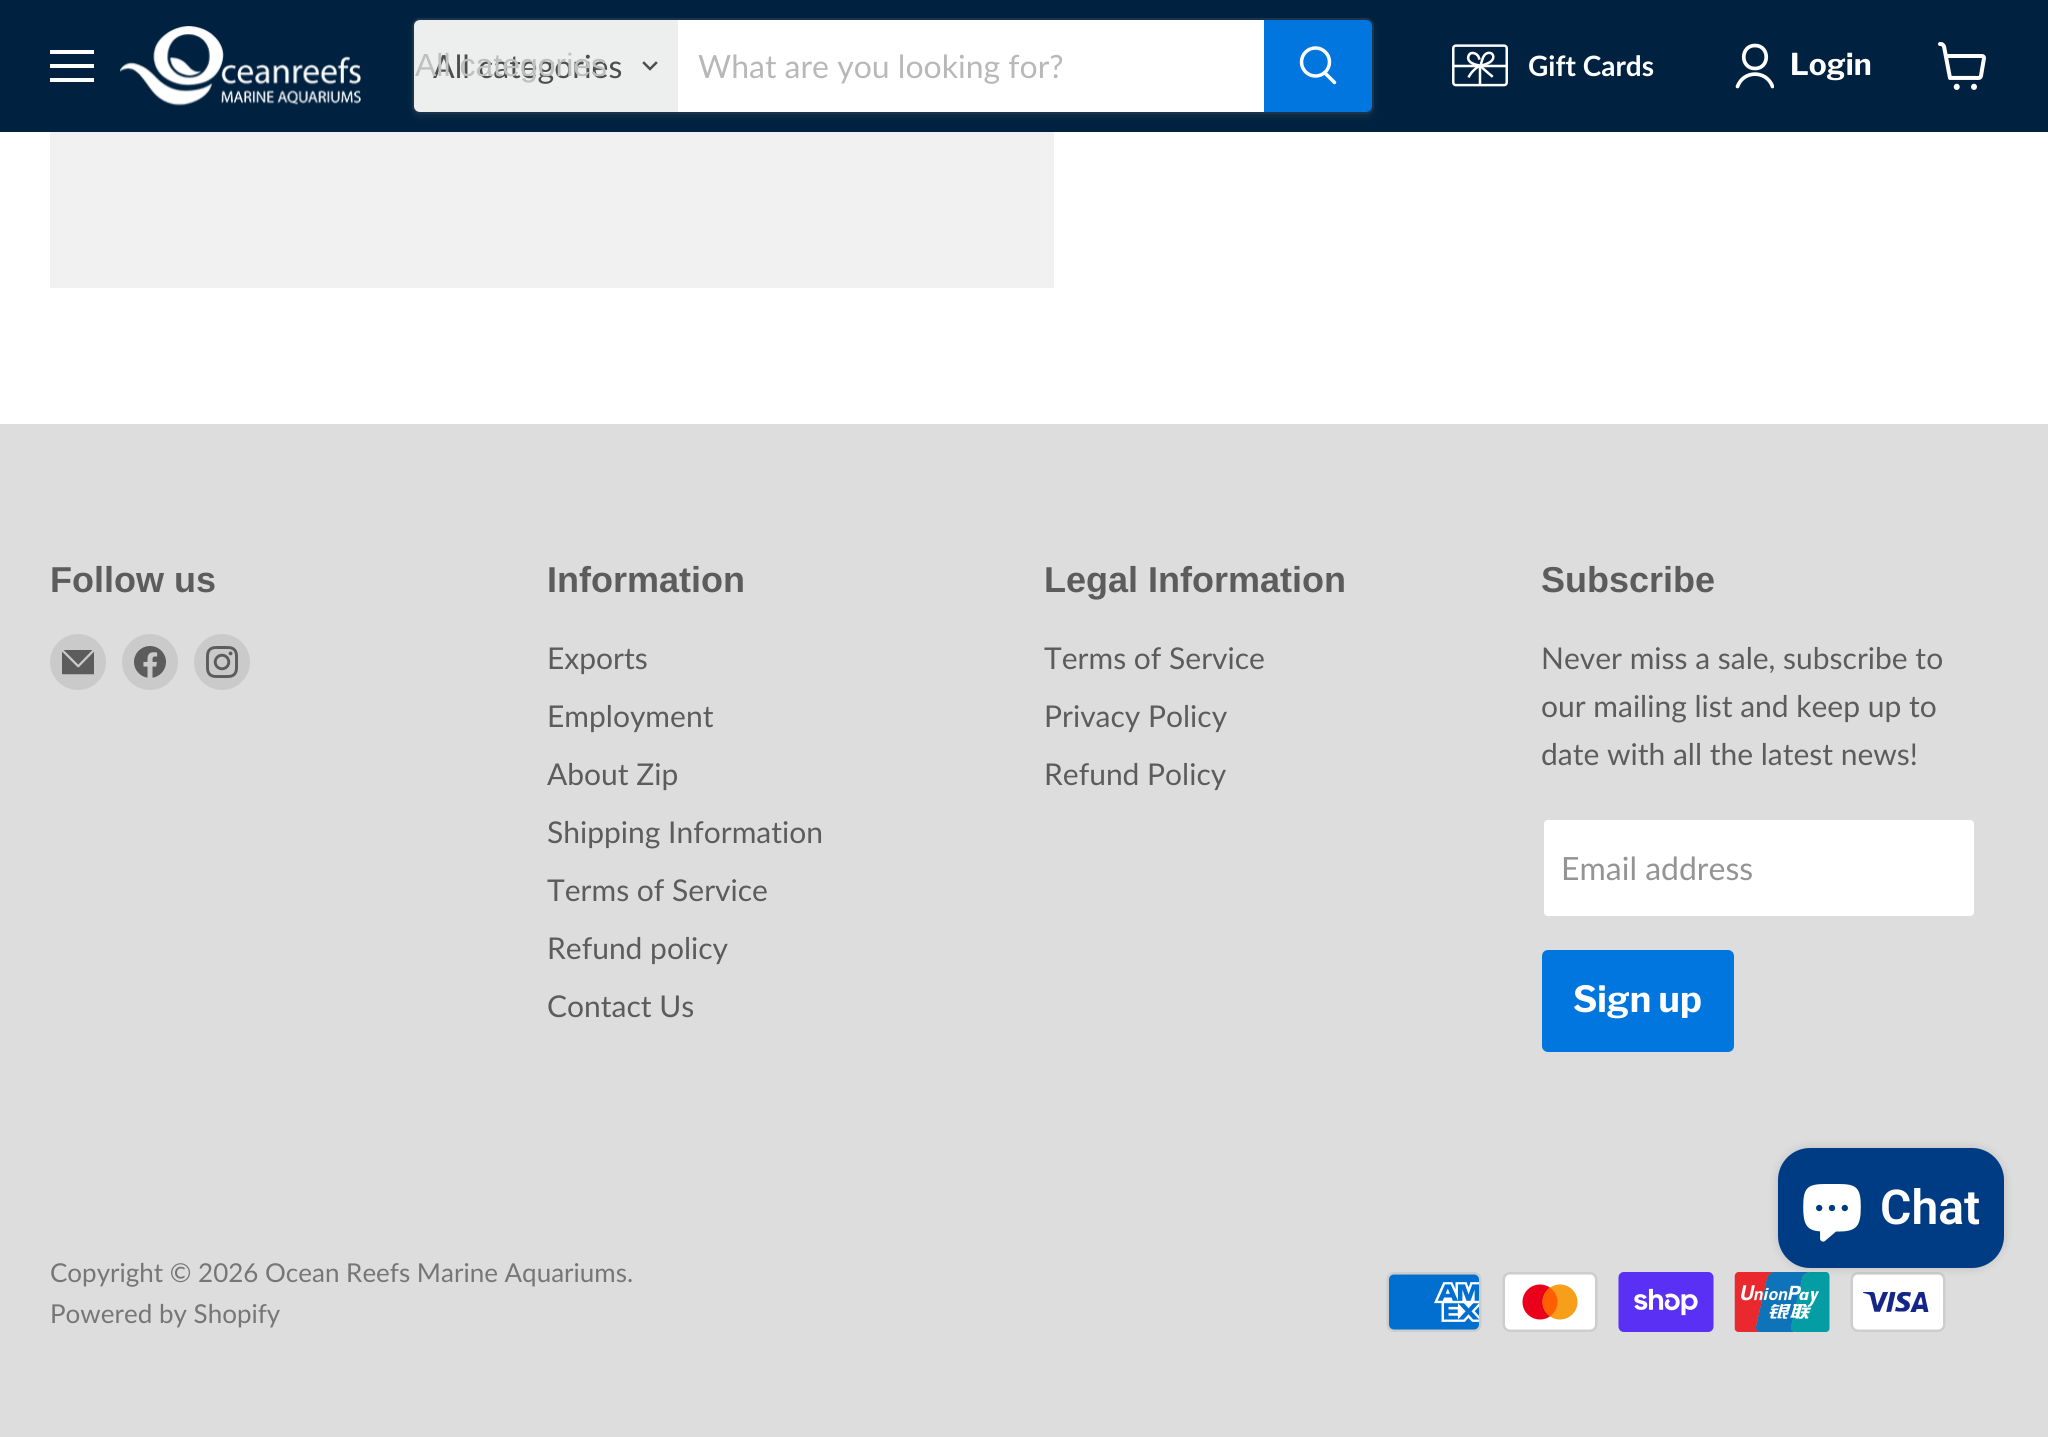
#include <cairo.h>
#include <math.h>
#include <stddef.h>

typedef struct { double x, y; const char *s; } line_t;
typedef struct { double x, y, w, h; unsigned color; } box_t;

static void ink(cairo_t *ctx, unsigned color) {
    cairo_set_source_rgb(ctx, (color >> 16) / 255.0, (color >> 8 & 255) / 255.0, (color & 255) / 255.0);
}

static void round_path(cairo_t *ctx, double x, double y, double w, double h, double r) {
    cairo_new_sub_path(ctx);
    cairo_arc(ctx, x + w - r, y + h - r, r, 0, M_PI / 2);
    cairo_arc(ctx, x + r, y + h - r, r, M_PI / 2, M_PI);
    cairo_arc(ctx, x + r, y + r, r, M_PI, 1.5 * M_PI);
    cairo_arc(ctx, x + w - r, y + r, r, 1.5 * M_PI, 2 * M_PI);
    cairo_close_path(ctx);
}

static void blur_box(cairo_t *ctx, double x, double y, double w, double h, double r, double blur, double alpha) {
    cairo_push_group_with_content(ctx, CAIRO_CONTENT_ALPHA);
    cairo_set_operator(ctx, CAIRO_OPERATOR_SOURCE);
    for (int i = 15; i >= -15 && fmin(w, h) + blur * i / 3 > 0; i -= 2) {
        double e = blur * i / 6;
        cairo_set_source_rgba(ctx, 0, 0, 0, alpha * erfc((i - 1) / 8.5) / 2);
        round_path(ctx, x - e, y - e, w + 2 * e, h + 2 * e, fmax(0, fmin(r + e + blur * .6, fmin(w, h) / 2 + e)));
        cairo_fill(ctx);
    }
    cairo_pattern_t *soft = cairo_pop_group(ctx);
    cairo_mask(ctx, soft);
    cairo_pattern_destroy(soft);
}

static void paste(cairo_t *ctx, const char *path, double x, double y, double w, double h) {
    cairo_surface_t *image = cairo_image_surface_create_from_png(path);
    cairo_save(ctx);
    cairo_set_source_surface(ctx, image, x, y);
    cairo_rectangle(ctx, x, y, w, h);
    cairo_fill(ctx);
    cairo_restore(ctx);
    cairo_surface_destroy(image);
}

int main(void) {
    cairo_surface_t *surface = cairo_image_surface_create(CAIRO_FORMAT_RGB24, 2048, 1437);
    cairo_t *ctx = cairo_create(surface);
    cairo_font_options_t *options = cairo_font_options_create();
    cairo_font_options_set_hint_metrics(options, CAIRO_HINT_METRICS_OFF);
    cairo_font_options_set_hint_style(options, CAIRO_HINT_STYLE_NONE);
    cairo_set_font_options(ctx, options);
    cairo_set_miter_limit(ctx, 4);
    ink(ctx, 0xFFFFFF);
    cairo_paint(ctx);
    {
        static const box_t items[] = {
            {0, 0, 2048, 132, 0x002240},
            {50, 50, 44, 4, 0xFFFFFF},
            {50, 64, 44, 4, 0xFFFFFF},
            {50, 78, 44, 4, 0xFFFFFF},
        };
        for (size_t i = 0; i < sizeof items / sizeof *items; i++) {
            ink(ctx, items[i].color);
            cairo_rectangle(ctx, items[i].x, items[i].y, items[i].w, items[i].h);
            cairo_fill(ctx);
        }
    }
    paste(ctx, "media/1.png", 120, 26, 241, 80);
    cairo_save(ctx);
    cairo_set_fill_rule(ctx, CAIRO_FILL_RULE_EVEN_ODD);
    cairo_new_path(ctx);
    cairo_move_to(ctx, 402, 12);
    cairo_line_to(ctx, 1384, 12);
    cairo_line_to(ctx, 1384, 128);
    cairo_line_to(ctx, 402, 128);
    cairo_close_path(ctx);
    cairo_move_to(ctx, 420, 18);
    cairo_line_to(ctx, 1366, 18);
    cairo_curve_to(ctx, 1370.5, 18, 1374, 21.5, 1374, 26);
    cairo_line_to(ctx, 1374, 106);
    cairo_curve_to(ctx, 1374, 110.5, 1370.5, 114, 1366, 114);
    cairo_line_to(ctx, 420, 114);
    cairo_curve_to(ctx, 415.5, 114, 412, 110.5, 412, 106);
    cairo_line_to(ctx, 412, 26);
    cairo_curve_to(ctx, 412, 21.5, 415.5, 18, 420, 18);
    cairo_close_path(ctx);
    cairo_clip(ctx);
    ink(ctx, 0x808080);
    blur_box(ctx, 412, 22, 962, 96, 8, 3, 0.11);
    cairo_restore(ctx);
    round_path(ctx, 413, 19, 960, 94, 7);
    cairo_set_source_rgba(ctx, 0.502, 0.502, 0.502, 0.2);
    cairo_stroke(ctx);
    ink(ctx, 0xEDEEEE);
    cairo_new_path(ctx);
    cairo_move_to(ctx, 420, 20);
    cairo_line_to(ctx, 678, 20);
    cairo_line_to(ctx, 678, 112);
    cairo_line_to(ctx, 420, 112);
    cairo_curve_to(ctx, 416.5, 112, 414, 109.5, 414, 106);
    cairo_line_to(ctx, 414, 26);
    cairo_curve_to(ctx, 414, 22.5, 416.5, 20, 420, 20);
    cairo_close_path(ctx);
    cairo_fill(ctx);
    cairo_select_font_face(ctx, "Lato", CAIRO_FONT_SLANT_NORMAL, CAIRO_FONT_WEIGHT_NORMAL);
    cairo_set_font_size(ctx, 32);
    ink(ctx, 0x4D4D4D);
    cairo_move_to(ctx, 433, 78);
    cairo_show_text(ctx, "All categories");
    cairo_select_font_face(ctx, "Liberation Sans", CAIRO_FONT_SLANT_NORMAL, CAIRO_FONT_WEIGHT_NORMAL);
    ink(ctx, 0xBEBFBF);
    cairo_move_to(ctx, 415, 76);
    cairo_show_text(ctx, "All categories");
    cairo_new_path(ctx);
    cairo_move_to(ctx, 650, 69);
    cairo_line_to(ctx, 656, 63);
    cairo_move_to(ctx, 650, 69);
    cairo_line_to(ctx, 644, 63);
    ink(ctx, 0x4D4D4D);
    cairo_set_line_width(ctx, 2.5);
    cairo_set_line_cap(ctx, CAIRO_LINE_CAP_SQUARE);
    cairo_stroke(ctx);
    ink(ctx, 0xFFFFFF);
    cairo_rectangle(ctx, 678, 20, 586, 92);
    cairo_fill(ctx);
    cairo_select_font_face(ctx, "Lato", CAIRO_FONT_SLANT_NORMAL, CAIRO_FONT_WEIGHT_NORMAL);
    ink(ctx, 0xB8B8B8);
    cairo_move_to(ctx, 698, 78);
    cairo_show_text(ctx, "What are you looking for?");
    ink(ctx, 0x0076DE);
    cairo_new_path(ctx);
    cairo_move_to(ctx, 1265, 21);
    cairo_line_to(ctx, 1366, 21);
    cairo_curve_to(ctx, 1369, 21, 1371, 23, 1371, 26);
    cairo_line_to(ctx, 1371, 106);
    cairo_curve_to(ctx, 1371, 109, 1369, 111, 1366, 111);
    cairo_line_to(ctx, 1265, 111);
    cairo_close_path(ctx);
    cairo_fill_preserve(ctx);
    cairo_set_line_width(ctx, 2);
    cairo_set_line_cap(ctx, CAIRO_LINE_CAP_BUTT);
    cairo_stroke(ctx);
    cairo_new_path(ctx);
    cairo_move_to(ctx, 1334.5, 82.5);
    cairo_line_to(ctx, 1325, 73);
    ink(ctx, 0xFFFFFF);
    cairo_set_line_width(ctx, 3.5);
    cairo_set_line_cap(ctx, CAIRO_LINE_CAP_ROUND);
    cairo_stroke(ctx);
    cairo_arc(ctx, 1315.5, 62, 14, 0, 2 * M_PI);
    cairo_set_line_cap(ctx, CAIRO_LINE_CAP_BUTT);
    cairo_stroke(ctx);
    paste(ctx, "media/2.png", 1452, 44, 56, 43);
    cairo_select_font_face(ctx, "Lato", CAIRO_FONT_SLANT_NORMAL, CAIRO_FONT_WEIGHT_BOLD);
    cairo_set_font_size(ctx, 28);
    cairo_move_to(ctx, 1528, 76);
    cairo_show_text(ctx, "Gift Cards");
    cairo_new_path(ctx);
    cairo_move_to(ctx, 1755, 68.5);
    cairo_curve_to(ctx, 1770, 68.5, 1770, 45.5, 1755, 45.5);
    cairo_curve_to(ctx, 1740, 45.5, 1740, 68.5, 1755, 68.5);
    cairo_close_path(ctx);
    cairo_set_line_width(ctx, 3.7);
    cairo_set_line_cap(ctx, CAIRO_LINE_CAP_ROUND);
    cairo_set_line_join(ctx, CAIRO_LINE_JOIN_ROUND);
    cairo_stroke(ctx);
    cairo_save(ctx);
    cairo_rectangle(ctx, 1734, 42, 40, 48);
    cairo_clip(ctx);
    cairo_new_path(ctx);
    cairo_move_to(ctx, 1772.5, 86.5);
    cairo_curve_to(ctx, 1766.5, 70, 1743.5, 70, 1737.5, 86.5);
    cairo_stroke(ctx);
    cairo_restore(ctx);
    cairo_select_font_face(ctx, "Libre Franklin", CAIRO_FONT_SLANT_NORMAL, CAIRO_FONT_WEIGHT_BOLD);
    cairo_set_font_size(ctx, 30);
    cairo_move_to(ctx, 1790, 75);
    cairo_show_text(ctx, "Login");
    paste(ctx, "media/3.png", 1938, 42, 48, 48);
    ink(ctx, 0xF1F1F1);
    cairo_rectangle(ctx, 50, 132, 1004, 156);
    cairo_fill(ctx);
    ink(ctx, 0xDDDDDD);
    cairo_rectangle(ctx, 0, 424, 2048, 1013);
    cairo_fill(ctx);
    cairo_select_font_face(ctx, "Arimo", CAIRO_FONT_SLANT_NORMAL, CAIRO_FONT_WEIGHT_BOLD);
    cairo_set_font_size(ctx, 36);
    ink(ctx, 0x5C5C5C);
    cairo_move_to(ctx, 50, 592);
    cairo_show_text(ctx, "Follow us");
    ink(ctx, 0xCACACA);
    cairo_new_path(ctx);
    cairo_arc(ctx, 78, 662, 28, 0, 2 * M_PI);
    cairo_fill(ctx);
    paste(ctx, "media/4.png", 62, 650, 32, 25);
    cairo_arc(ctx, 150, 662, 28, 0, 2 * M_PI);
    cairo_fill(ctx);
    paste(ctx, "media/5.png", 134, 646, 32, 32);
    cairo_arc(ctx, 222, 662, 28, 0, 2 * M_PI);
    cairo_fill(ctx);
    paste(ctx, "media/6.png", 206, 646, 32, 32);
    ink(ctx, 0x5C5C5C);
    cairo_move_to(ctx, 547, 592);
    cairo_show_text(ctx, "Information");
    cairo_select_font_face(ctx, "Lato", CAIRO_FONT_SLANT_NORMAL, CAIRO_FONT_WEIGHT_NORMAL);
    cairo_set_font_size(ctx, 30);
    {
        static const line_t items[] = {
            {547, 669, "Exports"},
            {547, 727, "Employment"},
            {547, 785, "About Zip"},
            {547, 843, "Shipping Information"},
            {547, 901, "Terms of Service"},
            {547, 959, "Refund policy"},
            {547, 1017, "Contact Us"},
        };
        for (size_t i = 0; i < sizeof items / sizeof *items; i++) {
            cairo_move_to(ctx, items[i].x, items[i].y);
            cairo_show_text(ctx, items[i].s);
        }
    }
    cairo_select_font_face(ctx, "Arimo", CAIRO_FONT_SLANT_NORMAL, CAIRO_FONT_WEIGHT_BOLD);
    cairo_set_font_size(ctx, 36);
    cairo_move_to(ctx, 1044, 592);
    cairo_show_text(ctx, "Legal Information");
    cairo_select_font_face(ctx, "Lato", CAIRO_FONT_SLANT_NORMAL, CAIRO_FONT_WEIGHT_NORMAL);
    cairo_set_font_size(ctx, 30);
    {
        static const line_t items[] = {
            {1044, 669, "Terms of Service"},
            {1044, 727, "Privacy Policy"},
            {1044, 785, "Refund Policy"},
        };
        for (size_t i = 0; i < sizeof items / sizeof *items; i++) {
            cairo_move_to(ctx, items[i].x, items[i].y);
            cairo_show_text(ctx, items[i].s);
        }
    }
    cairo_select_font_face(ctx, "Arimo", CAIRO_FONT_SLANT_NORMAL, CAIRO_FONT_WEIGHT_BOLD);
    cairo_set_font_size(ctx, 36);
    cairo_move_to(ctx, 1541, 592);
    cairo_show_text(ctx, "Subscribe");
    cairo_select_font_face(ctx, "Lato", CAIRO_FONT_SLANT_NORMAL, CAIRO_FONT_WEIGHT_NORMAL);
    cairo_set_font_size(ctx, 30);
    {
        static const line_t items[] = {
            {1541, 669, "Never miss a sale, subscribe to"},
            {1541, 717, "our mailing list and keep up to"},
            {1541, 765, "date with all the latest news!"},
        };
        for (size_t i = 0; i < sizeof items / sizeof *items; i++) {
            cairo_move_to(ctx, items[i].x, items[i].y);
            cairo_show_text(ctx, items[i].s);
        }
    }
    ink(ctx, 0xFFFFFF);
    round_path(ctx, 1543, 819, 432, 98, 5);
    cairo_fill_preserve(ctx);
    ink(ctx, 0xDDDDDD);
    cairo_set_line_width(ctx, 2);
    cairo_set_line_cap(ctx, CAIRO_LINE_CAP_BUTT);
    cairo_set_line_join(ctx, CAIRO_LINE_JOIN_MITER);
    cairo_stroke(ctx);
    cairo_set_font_size(ctx, 32);
    ink(ctx, 0x949494);
    cairo_move_to(ctx, 1561, 880);
    cairo_show_text(ctx, "Email address");
    ink(ctx, 0x0076DE);
    round_path(ctx, 1543, 951, 190, 100, 5);
    cairo_fill_preserve(ctx);
    cairo_stroke(ctx);
    cairo_select_font_face(ctx, "Libre Franklin", CAIRO_FONT_SLANT_NORMAL, CAIRO_FONT_WEIGHT_BOLD);
    cairo_set_font_size(ctx, 36);
    ink(ctx, 0xFFFFFF);
    cairo_move_to(ctx, 1573, 1012);
    cairo_show_text(ctx, "Sign up");
    cairo_select_font_face(ctx, "Lato", CAIRO_FONT_SLANT_NORMAL, CAIRO_FONT_WEIGHT_NORMAL);
    cairo_set_font_size(ctx, 26);
    ink(ctx, 0x767676);
    cairo_move_to(ctx, 50, 1282);
    cairo_show_text(ctx, "Copyright © 2026 Ocean Reefs Marine Aquariums.");
    cairo_move_to(ctx, 50, 1323);
    cairo_show_text(ctx, "Powered by Shopify");
    paste(ctx, "media/7.png", 1386, 1272, 96, 60);
    paste(ctx, "media/8.png", 1502, 1272, 96, 60);
    paste(ctx, "media/9.png", 1618, 1272, 96, 60);
    paste(ctx, "media/10.png", 1734, 1272, 96, 60);
    paste(ctx, "media/11.png", 1850, 1272, 96, 60);
    ink(ctx, 0x000000);
    blur_box(ctx, 1778, 1148, 226, 120, 32, 5, 0.15);
    ink(ctx, 0x003C83);
    round_path(ctx, 1778, 1148, 226, 120, 32);
    cairo_fill(ctx);
    paste(ctx, "media/12.png", 1803, 1184, 58, 58);
    cairo_select_font_face(ctx, "Roboto SemiBold", CAIRO_FONT_SLANT_NORMAL, CAIRO_FONT_WEIGHT_NORMAL);
    cairo_set_font_size(ctx, 48);
    ink(ctx, 0xFFFFFF);
    cairo_move_to(ctx, 1880, 1224);
    cairo_show_text(ctx, "Chat");
    cairo_surface_write_to_png(surface, "image.png");
    cairo_font_options_destroy(options);
    cairo_destroy(ctx);
    cairo_surface_destroy(surface);
    return 0;
}
